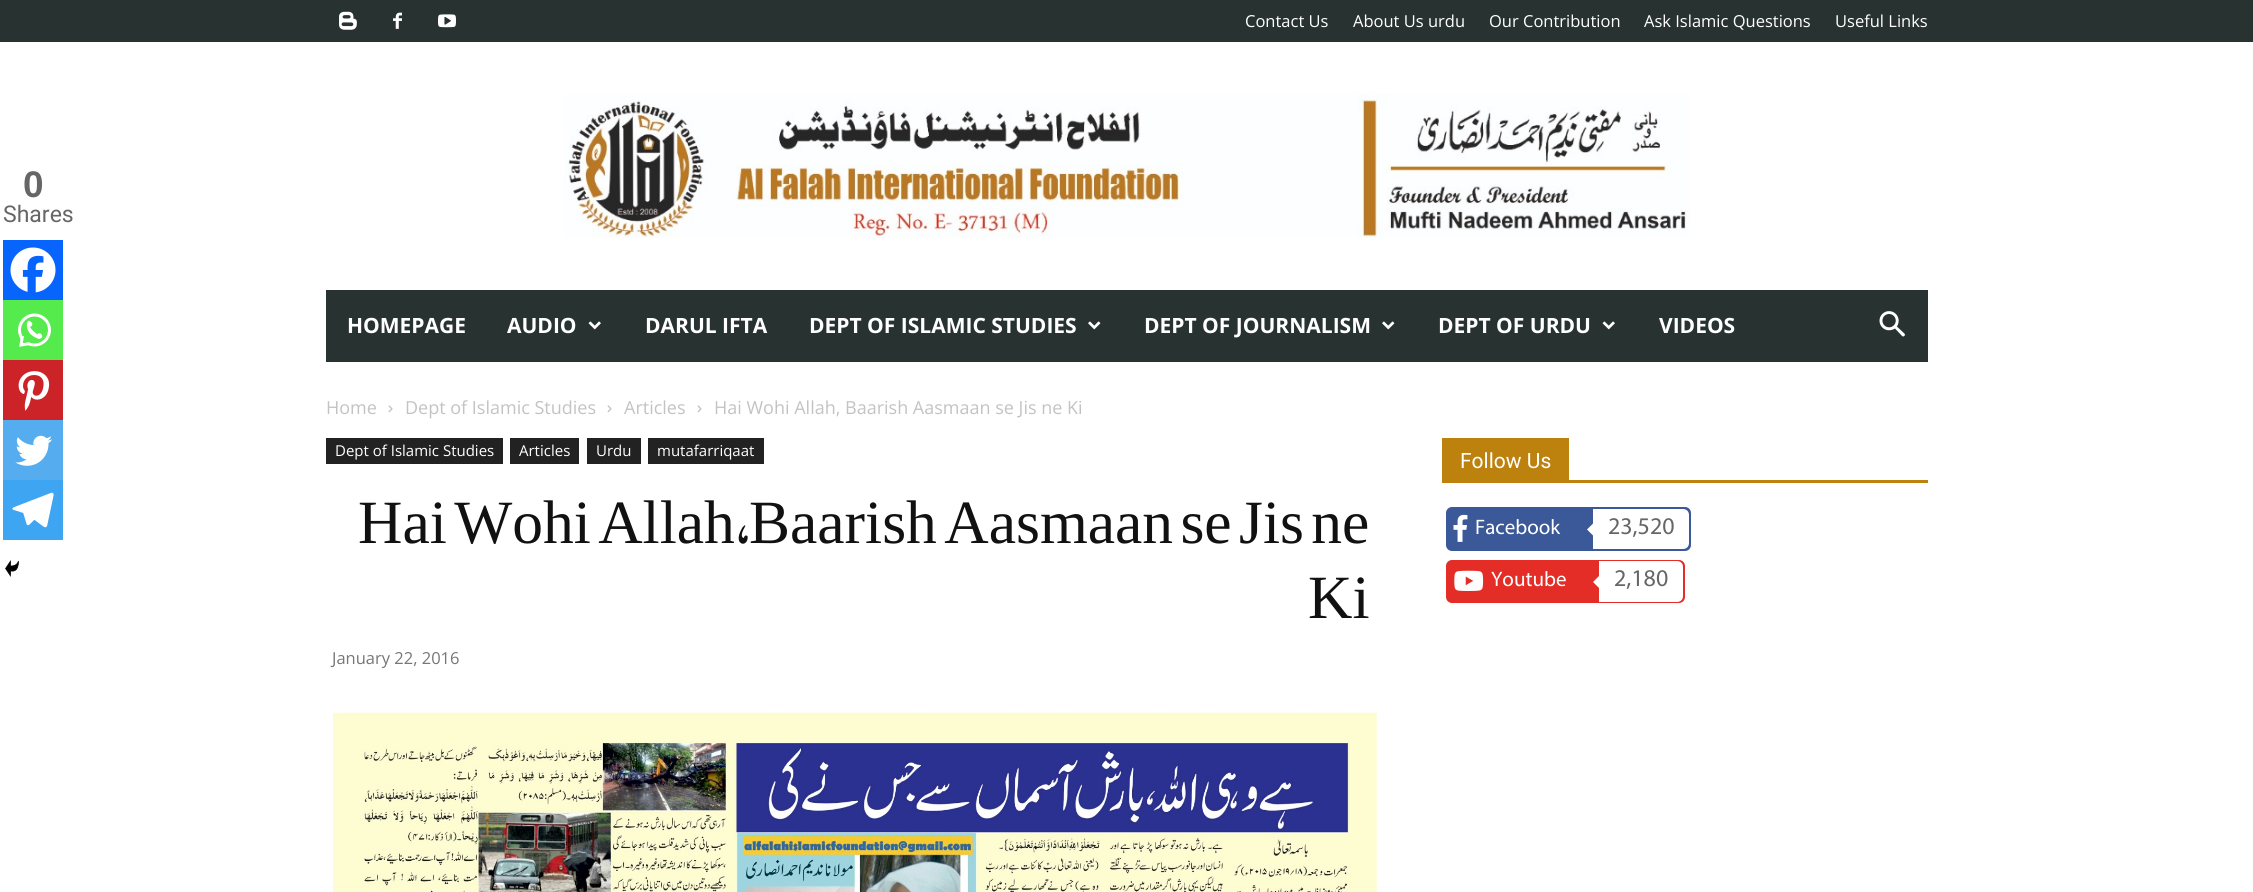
#include <cairo.h>
#include <math.h>
#include <stddef.h>

typedef struct { double x, y; const char *s; } line_t;

static void ink(cairo_t *ctx, unsigned color) {
    cairo_set_source_rgb(ctx, (color >> 16) / 255.0, (color >> 8 & 255) / 255.0, (color & 255) / 255.0);
}

static void write_spaced(cairo_t *ctx, double x, double y, const char *s, double letter, double word) {
    cairo_move_to(ctx, x, y);
    while (*s) {
        char ch[5] = {0};
        int n = 0;
        do ch[n++] = *s++; while ((*s & 0xC0) == 0x80);
        cairo_show_text(ctx, ch);
        cairo_rel_move_to(ctx, letter + word * (*ch == ' '), 0);
    }
}

static void round_path(cairo_t *ctx, double x, double y, double w, double h, double r) {
    cairo_new_sub_path(ctx);
    cairo_arc(ctx, x + w - r, y + h - r, r, 0, M_PI / 2);
    cairo_arc(ctx, x + r, y + h - r, r, M_PI / 2, M_PI);
    cairo_arc(ctx, x + r, y + r, r, M_PI, 1.5 * M_PI);
    cairo_arc(ctx, x + w - r, y + r, r, 1.5 * M_PI, 2 * M_PI);
    cairo_close_path(ctx);
}

static void paste(cairo_t *ctx, const char *path, double x, double y, double w, double h) {
    cairo_surface_t *image = cairo_image_surface_create_from_png(path);
    cairo_save(ctx);
    cairo_set_source_surface(ctx, image, x, y);
    cairo_rectangle(ctx, x, y, w, h);
    cairo_fill(ctx);
    cairo_restore(ctx);
    cairo_surface_destroy(image);
}

int main(void) {
    cairo_surface_t *surface = cairo_image_surface_create(CAIRO_FORMAT_RGB24, 2253, 892);
    cairo_t *ctx = cairo_create(surface);
    cairo_font_options_t *options = cairo_font_options_create();
    cairo_font_options_set_hint_metrics(options, CAIRO_HINT_METRICS_OFF);
    cairo_font_options_set_hint_style(options, CAIRO_HINT_STYLE_NONE);
    cairo_set_font_options(ctx, options);
    cairo_set_miter_limit(ctx, 4);
    ink(ctx, 0xFFFFFF);
    cairo_paint(ctx);
    ink(ctx, 0x283231);
    cairo_rectangle(ctx, 0, 0, 2253, 42);
    cairo_fill(ctx);
    paste(ctx, "media/1.png", 339, 11, 18, 19);
    paste(ctx, "media/2.png", 393, 12, 9, 17);
    paste(ctx, "media/3.png", 438, 14, 18, 14);
    cairo_select_font_face(ctx, "Open Sans", CAIRO_FONT_SLANT_NORMAL, CAIRO_FONT_WEIGHT_NORMAL);
    cairo_set_font_size(ctx, 16.5);
    ink(ctx, 0xFFFFFF);
    {
        static const line_t items[] = {
            {1245, 27, "Contact Us"},
            {1353, 27, "About Us urdu"},
            {1489, 27, "Our Contribution"},
            {1644, 27, "Ask Islamic Questions"},
            {1835, 27, "Useful Links"},
        };
        for (size_t i = 0; i < sizeof items / sizeof *items; i++) {
            cairo_move_to(ctx, items[i].x, items[i].y);
            cairo_show_text(ctx, items[i].s);
        }
    }
    paste(ctx, "media/4.png", 564, 93, 1126, 145);
    ink(ctx, 0x283231);
    cairo_rectangle(ctx, 326, 290, 1602, 72);
    cairo_fill(ctx);
    cairo_select_font_face(ctx, "Open Sans", CAIRO_FONT_SLANT_NORMAL, CAIRO_FONT_WEIGHT_BOLD);
    cairo_set_font_size(ctx, 21);
    ink(ctx, 0xFFFFFF);
    cairo_move_to(ctx, 347, 333);
    cairo_show_text(ctx, "HOMEPAGE");
    cairo_move_to(ctx, 507, 333);
    cairo_show_text(ctx, "AUDIO");
    paste(ctx, "media/5.png", 588, 321, 13, 9);
    cairo_move_to(ctx, 645, 333);
    cairo_show_text(ctx, "DARUL IFTA");
    cairo_move_to(ctx, 809, 333);
    cairo_show_text(ctx, "DEPT OF ISLAMIC STUDIES");
    paste(ctx, "media/6.png", 1088, 321, 13, 9);
    cairo_move_to(ctx, 1144, 333);
    cairo_show_text(ctx, "DEPT OF JOURNALISM");
    paste(ctx, "media/6.png", 1382, 321, 13, 9);
    cairo_move_to(ctx, 1438, 333);
    cairo_show_text(ctx, "DEPT OF URDU");
    paste(ctx, "media/5.png", 1602, 321, 13, 9);
    cairo_move_to(ctx, 1659, 333);
    cairo_show_text(ctx, "VIDEOS");
    paste(ctx, "media/7.png", 1879, 311, 26, 26);
    cairo_select_font_face(ctx, "Liberation Sans", CAIRO_FONT_SLANT_NORMAL, CAIRO_FONT_WEIGHT_BOLD);
    cairo_set_font_size(ctx, 37);
    ink(ctx, 0x666666);
    cairo_move_to(ctx, 23, 197);
    cairo_show_text(ctx, "0");
    cairo_select_font_face(ctx, "Roboto", CAIRO_FONT_SLANT_NORMAL, CAIRO_FONT_WEIGHT_NORMAL);
    cairo_set_font_size(ctx, 23);
    cairo_move_to(ctx, 3, 222);
    cairo_show_text(ctx, "Shares");
    ink(ctx, 0x0765FE);
    cairo_rectangle(ctx, 3, 240, 60, 60);
    cairo_fill(ctx);
    paste(ctx, "media/8.png", 10, 247, 46, 46);
    ink(ctx, 0x55EB4C);
    cairo_rectangle(ctx, 3, 300, 60, 60);
    cairo_fill(ctx);
    paste(ctx, "media/9.png", 18, 313, 33, 34);
    ink(ctx, 0xCC2329);
    cairo_rectangle(ctx, 3, 360, 60, 60);
    cairo_fill(ctx);
    paste(ctx, "media/10.png", 18, 371, 32, 40);
    ink(ctx, 0x55ACEE);
    cairo_rectangle(ctx, 3, 420, 60, 60);
    cairo_fill(ctx);
    paste(ctx, "media/11.png", 15, 435, 38, 31);
    ink(ctx, 0x3DA5F1);
    cairo_rectangle(ctx, 3, 480, 60, 60);
    cairo_fill(ctx);
    paste(ctx, "media/12.png", 12, 492, 42, 36);
    paste(ctx, "media/13.png", 5, 560, 14, 17);
    paste(ctx, "media/14.png", 333, 712, 1044, 180);
    ink(ctx, 0x222222);
    cairo_rectangle(ctx, 326, 438, 177, 26);
    cairo_fill(ctx);
    cairo_select_font_face(ctx, "Open Sans", CAIRO_FONT_SLANT_NORMAL, CAIRO_FONT_WEIGHT_NORMAL);
    cairo_set_font_size(ctx, 15);
    ink(ctx, 0xFFFFFF);
    cairo_move_to(ctx, 335, 456);
    cairo_show_text(ctx, "Dept of Islamic Studies");
    ink(ctx, 0x222222);
    cairo_rectangle(ctx, 510, 438, 69, 26);
    cairo_fill(ctx);
    ink(ctx, 0xFFFFFF);
    cairo_move_to(ctx, 519, 456);
    cairo_show_text(ctx, "Articles");
    ink(ctx, 0x222222);
    cairo_rectangle(ctx, 587, 438, 54, 26);
    cairo_fill(ctx);
    ink(ctx, 0xFFFFFF);
    cairo_move_to(ctx, 596, 456);
    cairo_show_text(ctx, "Urdu");
    ink(ctx, 0x222222);
    cairo_rectangle(ctx, 648, 438, 116, 26);
    cairo_fill(ctx);
    ink(ctx, 0xFFFFFF);
    cairo_move_to(ctx, 657, 456);
    cairo_show_text(ctx, "mutafarriqaat");
    cairo_select_font_face(ctx, "Liberation Serif", CAIRO_FONT_SLANT_NORMAL, CAIRO_FONT_WEIGHT_NORMAL);
    cairo_set_font_size(ctx, 61.5);
    ink(ctx, 0x111111);
    write_spaced(ctx, 358, 543, "Hai Wohi Allah", 0, -8);
    cairo_select_font_face(ctx, "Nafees", CAIRO_FONT_SLANT_NORMAL, CAIRO_FONT_WEIGHT_NORMAL);
    cairo_move_to(ctx, 735, 543);
    cairo_show_text(ctx, ",");
    cairo_select_font_face(ctx, "Liberation Serif", CAIRO_FONT_SLANT_NORMAL, CAIRO_FONT_WEIGHT_NORMAL);
    write_spaced(ctx, 749, 543, "Baarish Aasmaan se Jis ne", 0, -8);
    cairo_move_to(ctx, 1308, 618);
    cairo_show_text(ctx, "Ki");
    cairo_select_font_face(ctx, "Open Sans", CAIRO_FONT_SLANT_NORMAL, CAIRO_FONT_WEIGHT_NORMAL);
    cairo_set_font_size(ctx, 16.5);
    ink(ctx, 0x767676);
    cairo_move_to(ctx, 332, 664);
    cairo_show_text(ctx, "January 22, 2016");
    ink(ctx, 0xBD810E);
    cairo_rectangle(ctx, 1442, 480, 486, 3);
    cairo_fill(ctx);
    cairo_rectangle(ctx, 1442, 438, 127, 42);
    cairo_fill(ctx);
    cairo_select_font_face(ctx, "Roboto", CAIRO_FONT_SLANT_NORMAL, CAIRO_FONT_WEIGHT_NORMAL);
    cairo_set_font_size(ctx, 21);
    ink(ctx, 0xFFFFFF);
    cairo_move_to(ctx, 1460, 468);
    cairo_show_text(ctx, "Follow Us");
    ink(ctx, 0x3B5998);
    round_path(ctx, 1446, 507, 245, 44, 6);
    cairo_fill(ctx);
    paste(ctx, "media/15.png", 1453, 514, 15, 28);
    cairo_select_font_face(ctx, "Myriad", CAIRO_FONT_SLANT_NORMAL, CAIRO_FONT_WEIGHT_NORMAL);
    ink(ctx, 0xFFFFFF);
    cairo_move_to(ctx, 1475, 534);
    cairo_show_text(ctx, "Facebook");
    cairo_new_path(ctx);
    cairo_move_to(ctx, 1593, 509);
    cairo_line_to(ctx, 1683, 509);
    cairo_curve_to(ctx, 1686.5, 509, 1689, 511.5, 1689, 515);
    cairo_line_to(ctx, 1689, 543);
    cairo_curve_to(ctx, 1689, 546.5, 1686.5, 549, 1683, 549);
    cairo_line_to(ctx, 1593, 549);
    cairo_close_path(ctx);
    cairo_fill(ctx);
    cairo_new_path(ctx);
    cairo_move_to(ctx, 1593, 523.5);
    cairo_line_to(ctx, 1593, 535.5);
    cairo_line_to(ctx, 1587, 529.5);
    cairo_close_path(ctx);
    cairo_fill(ctx);
    cairo_set_font_size(ctx, 24);
    ink(ctx, 0x666666);
    cairo_move_to(ctx, 1608, 534);
    cairo_show_text(ctx, "23,520");
    ink(ctx, 0xE52D27);
    round_path(ctx, 1446, 560, 239, 43, 6);
    cairo_fill(ctx);
    paste(ctx, "media/16.png", 1454, 570, 30, 21);
    cairo_set_font_size(ctx, 21);
    ink(ctx, 0xFFFFFF);
    cairo_move_to(ctx, 1491, 586);
    cairo_show_text(ctx, "Youtube");
    cairo_new_path(ctx);
    cairo_move_to(ctx, 1599, 561);
    cairo_line_to(ctx, 1677, 561);
    cairo_curve_to(ctx, 1680.5, 561, 1683, 563.5, 1683, 567);
    cairo_line_to(ctx, 1683, 596);
    cairo_curve_to(ctx, 1683, 599.5, 1680.5, 602, 1677, 602);
    cairo_line_to(ctx, 1599, 602);
    cairo_close_path(ctx);
    cairo_fill(ctx);
    cairo_new_path(ctx);
    cairo_move_to(ctx, 1599, 576);
    cairo_line_to(ctx, 1599, 588);
    cairo_line_to(ctx, 1593, 582);
    cairo_close_path(ctx);
    cairo_fill(ctx);
    cairo_set_font_size(ctx, 24);
    ink(ctx, 0x666666);
    cairo_move_to(ctx, 1614, 586);
    cairo_show_text(ctx, "2,180");
    cairo_select_font_face(ctx, "Open Sans", CAIRO_FONT_SLANT_NORMAL, CAIRO_FONT_WEIGHT_NORMAL);
    cairo_set_font_size(ctx, 18);
    ink(ctx, 0xC3C3C3);
    cairo_move_to(ctx, 326, 414);
    cairo_show_text(ctx, "Home");
    paste(ctx, "media/17.png", 388, 405, 5, 8);
    cairo_move_to(ctx, 405, 414);
    cairo_show_text(ctx, "Dept of Islamic Studies");
    paste(ctx, "media/17.png", 607, 405, 5, 8);
    cairo_move_to(ctx, 624, 414);
    cairo_show_text(ctx, "Articles");
    paste(ctx, "media/17.png", 697, 405, 5, 8);
    cairo_move_to(ctx, 714, 414);
    cairo_show_text(ctx, "Hai Wohi Allah, Baarish Aasmaan se Jis ne Ki");
    cairo_surface_write_to_png(surface, "image.png");
    cairo_font_options_destroy(options);
    cairo_destroy(ctx);
    cairo_surface_destroy(surface);
    return 0;
}
